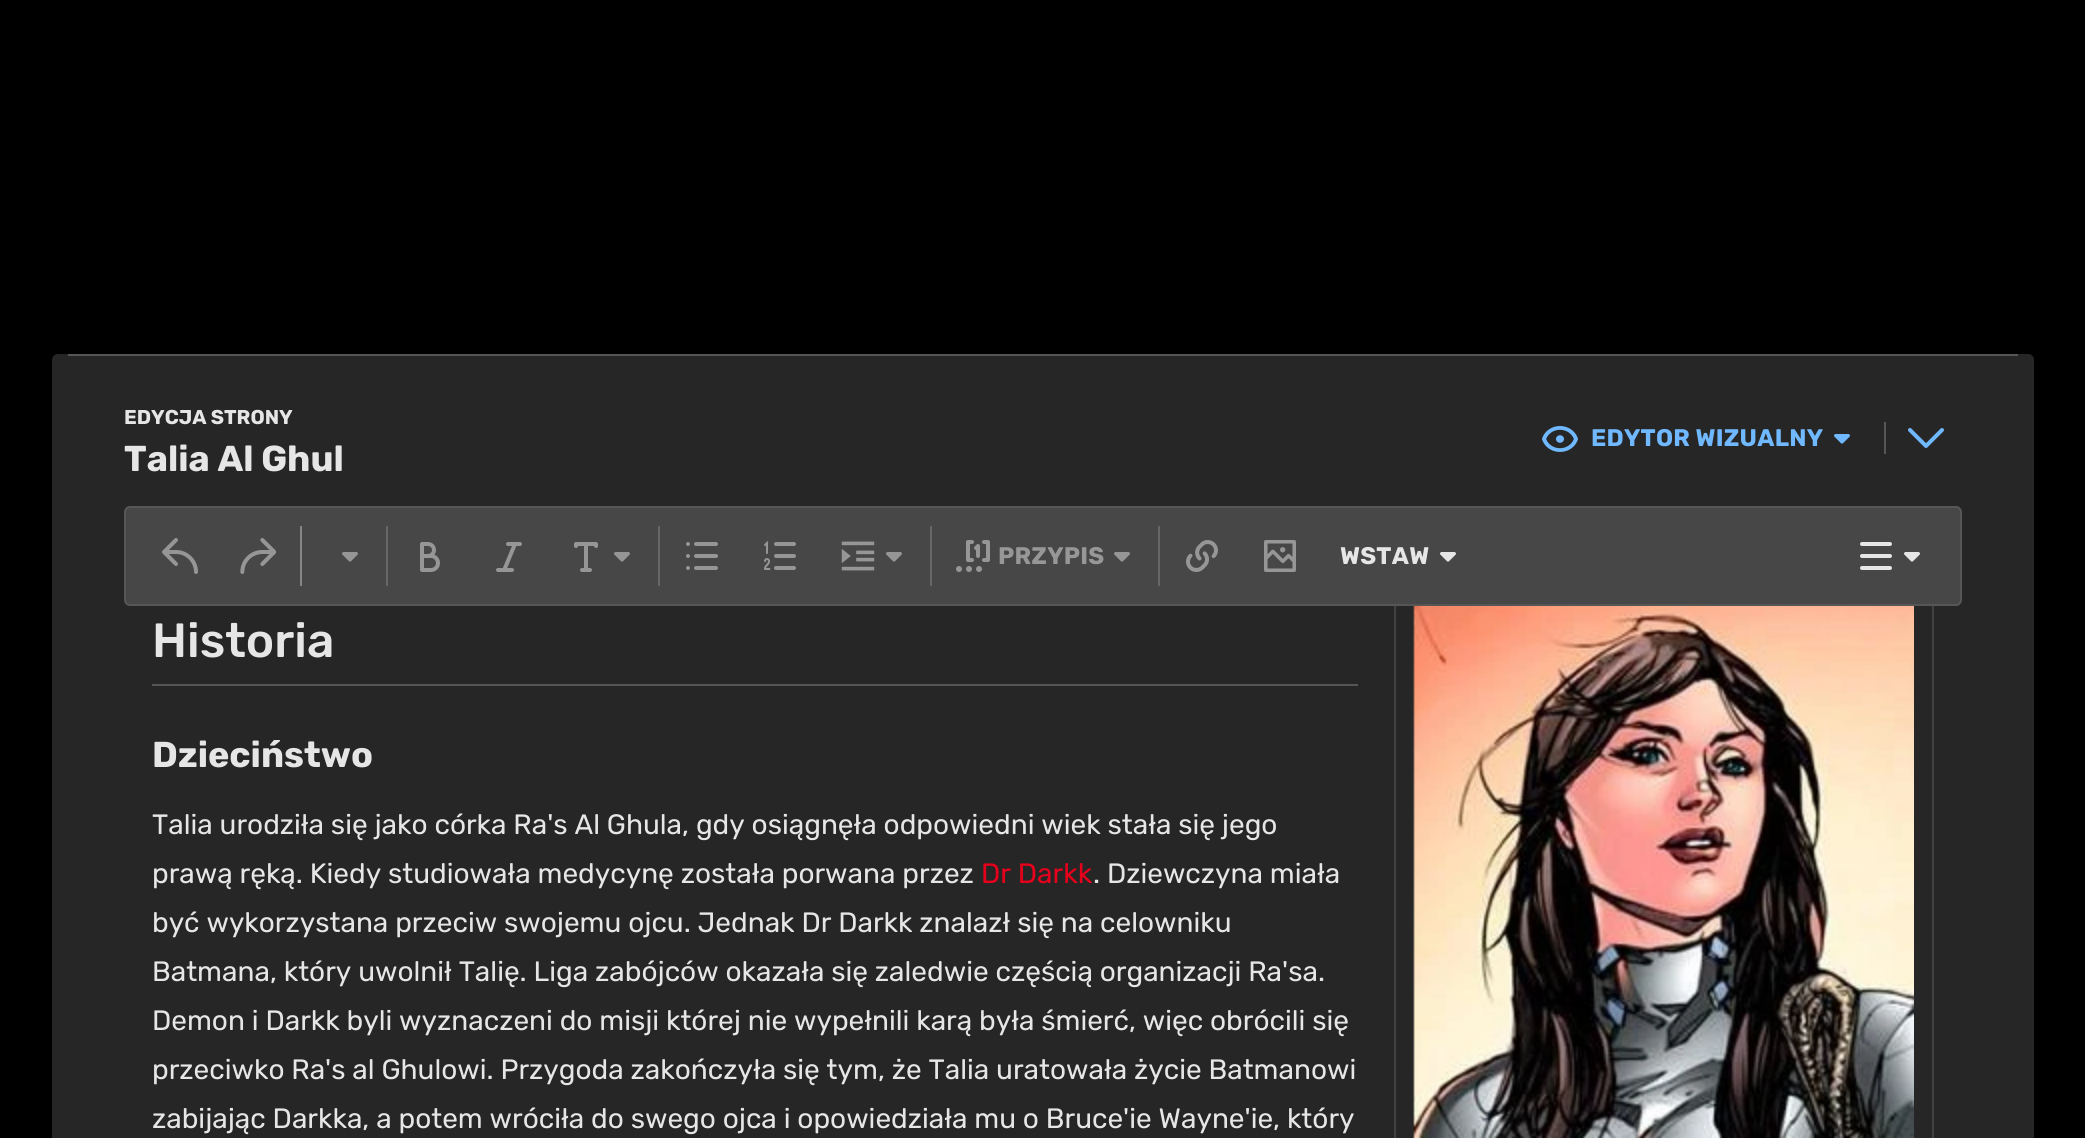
#include <cairo.h>
#include <math.h>
#include <stddef.h>

typedef struct { double x, y; const char *s; } line_t;

static void ink(cairo_t *ctx, unsigned color) {
    cairo_set_source_rgb(ctx, (color >> 16) / 255.0, (color >> 8 & 255) / 255.0, (color & 255) / 255.0);
}

static void write_spaced(cairo_t *ctx, double x, double y, const char *s, double letter, double word) {
    cairo_move_to(ctx, x, y);
    while (*s) {
        char ch[5] = {0};
        int n = 0;
        do ch[n++] = *s++; while ((*s & 0xC0) == 0x80);
        cairo_show_text(ctx, ch);
        cairo_rel_move_to(ctx, letter + word * (*ch == ' '), 0);
    }
}

static void round_path(cairo_t *ctx, double x, double y, double w, double h, double r) {
    cairo_new_sub_path(ctx);
    cairo_arc(ctx, x + w - r, y + h - r, r, 0, M_PI / 2);
    cairo_arc(ctx, x + r, y + h - r, r, M_PI / 2, M_PI);
    cairo_arc(ctx, x + r, y + r, r, M_PI, 1.5 * M_PI);
    cairo_arc(ctx, x + w - r, y + r, r, 1.5 * M_PI, 2 * M_PI);
    cairo_close_path(ctx);
}

static void paste(cairo_t *ctx, const char *path, double x, double y, double w, double h) {
    cairo_surface_t *image = cairo_image_surface_create_from_png(path);
    cairo_save(ctx);
    cairo_set_source_surface(ctx, image, x, y);
    cairo_rectangle(ctx, x, y, w, h);
    cairo_fill(ctx);
    cairo_restore(ctx);
    cairo_surface_destroy(image);
}

int main(void) {
    cairo_surface_t *surface = cairo_image_surface_create(CAIRO_FORMAT_RGB24, 2085, 1138);
    cairo_t *ctx = cairo_create(surface);
    cairo_font_options_t *options = cairo_font_options_create();
    cairo_font_options_set_hint_metrics(options, CAIRO_HINT_METRICS_OFF);
    cairo_font_options_set_hint_style(options, CAIRO_HINT_STYLE_NONE);
    cairo_set_font_options(ctx, options);
    cairo_set_miter_limit(ctx, 4);
    ink(ctx, 0x000000);
    cairo_paint(ctx);
    ink(ctx, 0x262626);
    round_path(ctx, 52, 354, 1982, 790, 6);
    cairo_fill(ctx);
    ink(ctx, 0x565656);
    cairo_rectangle(ctx, 68, 354, 1950, 2);
    cairo_fill(ctx);
    cairo_select_font_face(ctx, "Rubik", CAIRO_FONT_SLANT_NORMAL, CAIRO_FONT_WEIGHT_BOLD);
    cairo_set_font_size(ctx, 20);
    ink(ctx, 0xE6E6E6);
    cairo_move_to(ctx, 124, 424);
    cairo_show_text(ctx, "EDYCJA STRONY");
    cairo_set_font_size(ctx, 36);
    cairo_move_to(ctx, 124, 471);
    cairo_show_text(ctx, "Talia Al Ghul");
    paste(ctx, "media/1.png", 1542, 426, 36, 26);
    cairo_set_font_size(ctx, 24);
    ink(ctx, 0x70B8FF);
    write_spaced(ctx, 1591, 446, "EDYTOR WIZUALNY", 0.25, 0);
    paste(ctx, "media/2.png", 1834, 434, 16, 10);
    ink(ctx, 0x565656);
    cairo_rectangle(ctx, 1884, 422, 2, 32);
    cairo_fill(ctx);
    paste(ctx, "media/3.png", 1908, 428, 36, 20);
    cairo_save(ctx);
    cairo_rectangle(ctx, 124, 606, 1838, 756);
    cairo_clip(ctx);
    round_path(ctx, 1395, 503, 538, 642, 5);
    ink(ctx, 0x414141);
    cairo_stroke(ctx);
    cairo_restore(ctx);
    ink(ctx, 0x474747);
    round_path(ctx, 125, 507, 1836, 98, 5);
    cairo_fill_preserve(ctx);
    ink(ctx, 0x565656);
    cairo_stroke(ctx);
    ink(ctx, 0x868686);
    cairo_rectangle(ctx, 300, 526, 2, 60);
    cairo_fill(ctx);
    paste(ctx, "media/4.png", 162, 538, 36, 36);
    paste(ctx, "media/5.png", 240, 538, 36, 36);
    ink(ctx, 0x676767);
    cairo_rectangle(ctx, 386, 526, 2, 60);
    cairo_fill(ctx);
    paste(ctx, "media/6.png", 342, 552, 16, 10);
    paste(ctx, "media/7.png", 420, 542, 20, 30);
    paste(ctx, "media/8.png", 496, 542, 26, 30);
    cairo_rectangle(ctx, 658, 526, 2, 60);
    cairo_fill(ctx);
    paste(ctx, "media/9.png", 574, 542, 24, 30);
    paste(ctx, "media/6.png", 614, 552, 16, 10);
    paste(ctx, "media/10.png", 686, 542, 32, 28);
    paste(ctx, "media/11.png", 764, 541, 32, 29);
    cairo_rectangle(ctx, 930, 526, 2, 60);
    cairo_fill(ctx);
    paste(ctx, "media/12.png", 841, 541, 34, 30);
    paste(ctx, "media/6.png", 886, 552, 16, 10);
    cairo_rectangle(ctx, 1158, 526, 2, 60);
    cairo_fill(ctx);
    paste(ctx, "media/13.png", 956, 540, 34, 32);
    ink(ctx, 0x979797);
    write_spaced(ctx, 998, 564, "PRZYPIS", 0.25, 0);
    paste(ctx, "media/6.png", 1114, 552, 16, 10);
    paste(ctx, "media/14.png", 1186, 540, 32, 32);
    paste(ctx, "media/15.png", 1264, 540, 32, 32);
    ink(ctx, 0xE6E6E6);
    write_spaced(ctx, 1340, 564, "WSTAW", 0.25, 0);
    paste(ctx, "media/16.png", 1440, 552, 16, 10);
    paste(ctx, "media/17.png", 1860, 542, 32, 28);
    paste(ctx, "media/16.png", 1904, 552, 16, 10);
    ink(ctx, 0x565656);
    cairo_rectangle(ctx, 152, 684, 1206, 2);
    cairo_fill(ctx);
    cairo_select_font_face(ctx, "Rubik Medium", CAIRO_FONT_SLANT_NORMAL, CAIRO_FONT_WEIGHT_NORMAL);
    cairo_set_font_size(ctx, 48);
    ink(ctx, 0xE6E6E6);
    cairo_move_to(ctx, 152, 657);
    cairo_show_text(ctx, "Historia");
    paste(ctx, "media/18.png", 1413, 606, 501, 532);
    cairo_select_font_face(ctx, "Rubik", CAIRO_FONT_SLANT_NORMAL, CAIRO_FONT_WEIGHT_BOLD);
    cairo_set_font_size(ctx, 36);
    cairo_move_to(ctx, 152, 767);
    cairo_show_text(ctx, "Dzieciństwo");
    cairo_select_font_face(ctx, "Rubik", CAIRO_FONT_SLANT_NORMAL, CAIRO_FONT_WEIGHT_NORMAL);
    cairo_set_font_size(ctx, 28);
    cairo_move_to(ctx, 152, 834);
    cairo_show_text(ctx, "Talia urodziła się jako córka Ra's Al Ghula, gdy osiągnęła odpowiedni wiek stała się jego");
    cairo_move_to(ctx, 152, 883);
    cairo_show_text(ctx, "prawą ręką. Kiedy studiowała medycynę została porwana przez");
    ink(ctx, 0xE7001B);
    cairo_move_to(ctx, 981, 883);
    cairo_show_text(ctx, "Dr Darkk");
    ink(ctx, 0xE6E6E6);
    {
        static const line_t items[] = {
            {1093, 883, ". Dziewczyna miała"},
            {152, 932, "być wykorzystana przeciw swojemu ojcu. Jednak Dr Darkk znalazł się na celowniku"},
            {152, 981, "Batmana, który uwolnił Talię. Liga zabójców okazała się zaledwie częścią organizacji Ra'sa."},
            {152, 1030, "Demon i Darkk byli wyznaczeni do misji której nie wypełnili karą była śmierć, więc obrócili się"},
            {152, 1079, "przeciwko Ra's al Ghulowi. Przygoda zakończyła się tym, że Talia uratowała życie Batmanowi"},
            {152, 1128, "zabijając Darkka, a potem wróciła do swego ojca i opowiedziała mu o Bruce'ie Wayne'ie, który"},
        };
        for (size_t i = 0; i < sizeof items / sizeof *items; i++) {
            cairo_move_to(ctx, items[i].x, items[i].y);
            cairo_show_text(ctx, items[i].s);
        }
    }
    cairo_surface_write_to_png(surface, "image.png");
    cairo_font_options_destroy(options);
    cairo_destroy(ctx);
    cairo_surface_destroy(surface);
    return 0;
}
